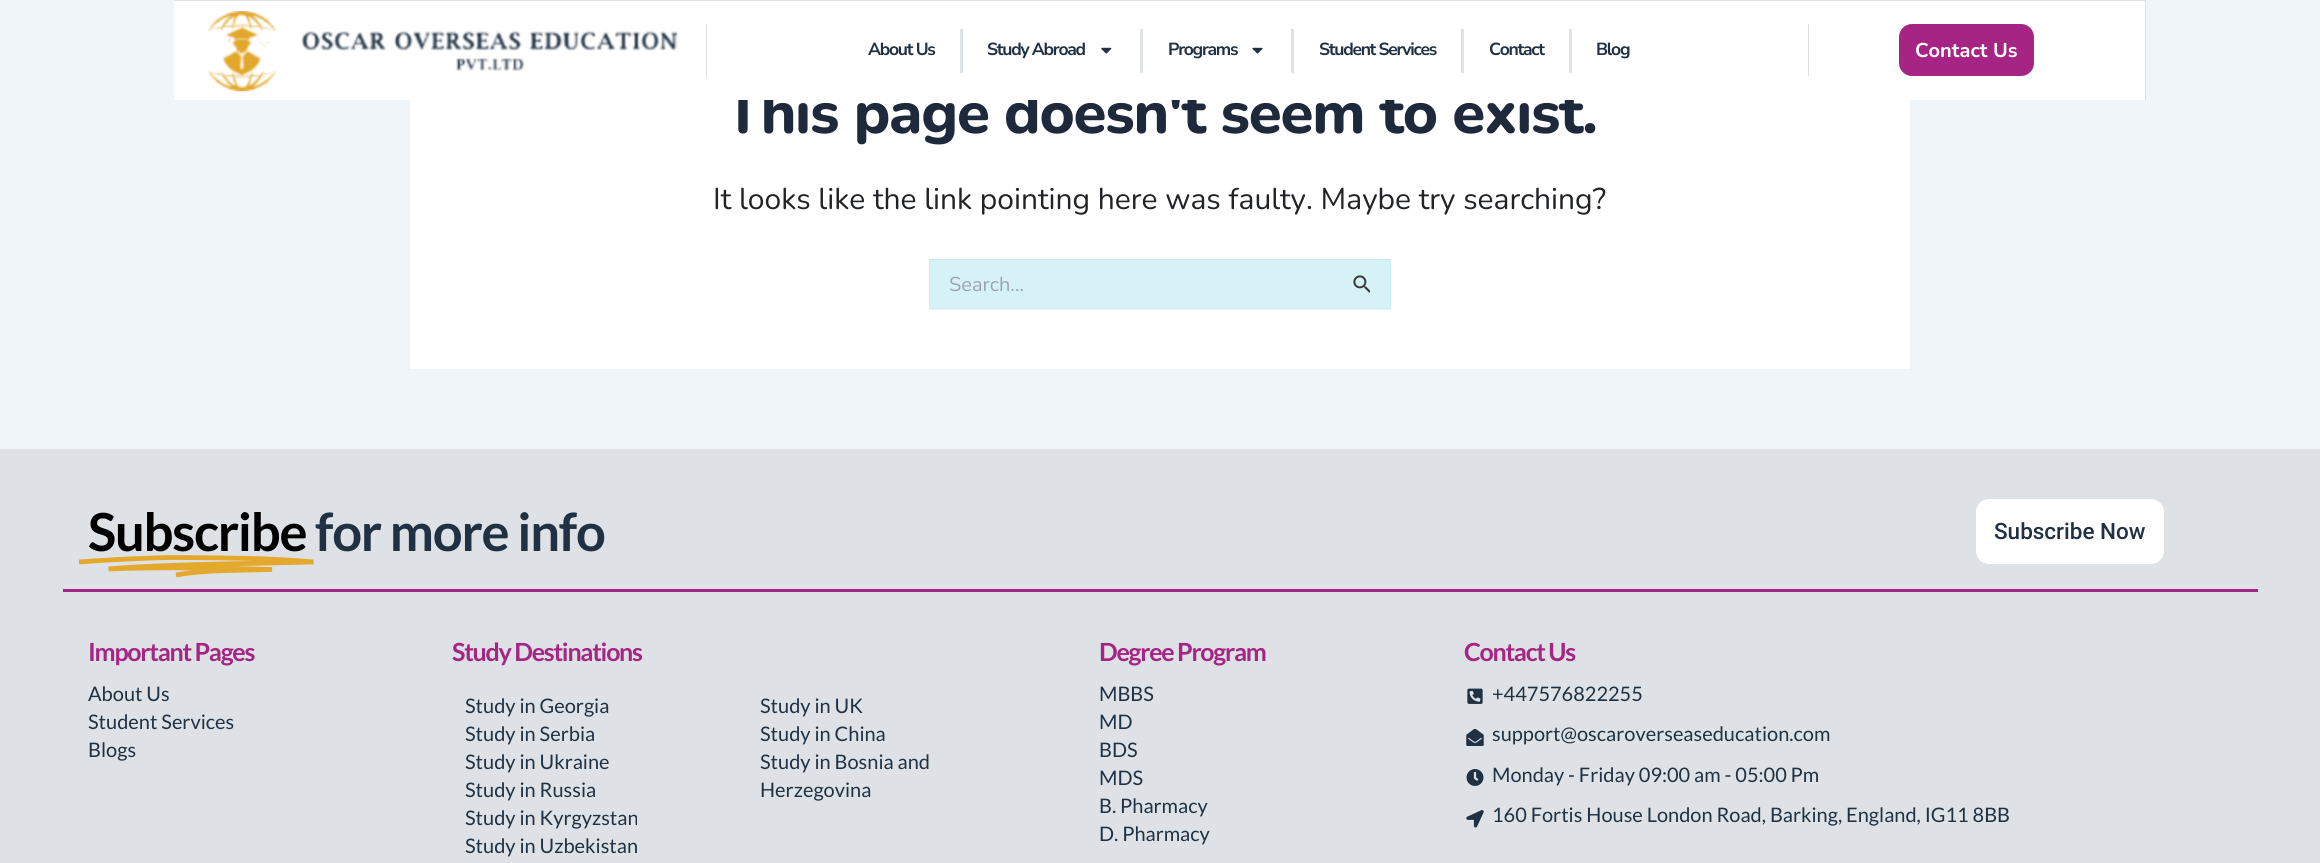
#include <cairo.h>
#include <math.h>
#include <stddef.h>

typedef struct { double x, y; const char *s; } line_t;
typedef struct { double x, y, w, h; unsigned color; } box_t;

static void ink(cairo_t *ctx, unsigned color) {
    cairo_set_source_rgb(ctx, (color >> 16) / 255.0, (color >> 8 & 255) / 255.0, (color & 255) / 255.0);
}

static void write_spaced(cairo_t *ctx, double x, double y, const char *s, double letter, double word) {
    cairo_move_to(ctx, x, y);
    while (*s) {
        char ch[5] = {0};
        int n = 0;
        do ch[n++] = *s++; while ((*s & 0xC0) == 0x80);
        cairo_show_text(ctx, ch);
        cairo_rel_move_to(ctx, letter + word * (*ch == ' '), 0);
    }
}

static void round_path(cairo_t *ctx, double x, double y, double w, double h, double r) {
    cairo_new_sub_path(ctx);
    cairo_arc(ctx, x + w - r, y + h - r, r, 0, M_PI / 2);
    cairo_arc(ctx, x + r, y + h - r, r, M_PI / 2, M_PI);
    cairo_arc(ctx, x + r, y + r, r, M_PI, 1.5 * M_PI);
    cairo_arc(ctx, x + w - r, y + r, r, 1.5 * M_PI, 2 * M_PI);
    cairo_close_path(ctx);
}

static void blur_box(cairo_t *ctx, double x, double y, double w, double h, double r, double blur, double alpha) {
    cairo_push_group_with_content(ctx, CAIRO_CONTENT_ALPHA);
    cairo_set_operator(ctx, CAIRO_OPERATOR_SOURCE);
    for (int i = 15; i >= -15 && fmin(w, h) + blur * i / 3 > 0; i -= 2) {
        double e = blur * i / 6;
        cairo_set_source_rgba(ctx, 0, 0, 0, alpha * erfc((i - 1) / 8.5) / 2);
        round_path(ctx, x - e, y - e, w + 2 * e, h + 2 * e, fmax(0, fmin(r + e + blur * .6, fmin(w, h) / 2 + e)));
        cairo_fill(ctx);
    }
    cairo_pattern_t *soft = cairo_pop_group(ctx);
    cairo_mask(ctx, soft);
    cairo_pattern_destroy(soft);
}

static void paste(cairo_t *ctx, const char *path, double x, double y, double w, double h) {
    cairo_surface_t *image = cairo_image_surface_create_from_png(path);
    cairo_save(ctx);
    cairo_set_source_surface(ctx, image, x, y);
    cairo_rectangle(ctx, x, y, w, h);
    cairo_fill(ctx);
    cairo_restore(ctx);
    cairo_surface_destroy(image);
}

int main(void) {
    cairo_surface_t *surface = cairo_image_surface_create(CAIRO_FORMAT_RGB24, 2320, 863);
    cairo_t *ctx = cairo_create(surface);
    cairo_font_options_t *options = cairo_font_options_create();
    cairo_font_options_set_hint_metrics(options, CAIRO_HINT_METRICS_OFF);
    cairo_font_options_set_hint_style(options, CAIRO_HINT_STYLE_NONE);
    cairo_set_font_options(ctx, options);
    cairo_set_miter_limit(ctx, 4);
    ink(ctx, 0xF0F5FA);
    cairo_paint(ctx);
    ink(ctx, 0xFFFFFF);
    cairo_rectangle(ctx, 410, 100, 1500, 269);
    cairo_fill(ctx);
    cairo_select_font_face(ctx, "Nunito ExtraBold", CAIRO_FONT_SLANT_NORMAL, CAIRO_FONT_WEIGHT_NORMAL);
    cairo_set_font_size(ctx, 60);
    ink(ctx, 0x1E293B);
    write_spaced(ctx, 724, 133, "This page doesn't seem to exist.", -1.25, 0);
    {
        static const box_t items[] = {
            {174, 1, 1971, 99, 0xFFFFFF},
            {174, 0, 1972, 1, 0xDEE2E6},
            {2145, 0, 1, 100, 0xDEE2E6},
        };
        for (size_t i = 0; i < sizeof items / sizeof *items; i++) {
            ink(ctx, items[i].color);
            cairo_rectangle(ctx, items[i].x, items[i].y, items[i].w, items[i].h);
            cairo_fill(ctx);
        }
    }
    paste(ctx, "media/1.png", 207, 11, 471, 81);
    cairo_rectangle(ctx, 706, 24, 1, 54);
    cairo_fill(ctx);
    cairo_select_font_face(ctx, "Nunito Sans", CAIRO_FONT_SLANT_NORMAL, CAIRO_FONT_WEIGHT_BOLD);
    cairo_set_font_size(ctx, 17.5);
    ink(ctx, 0x203143);
    write_spaced(ctx, 868, 55, "About Us", -1.25, 0);
    ink(ctx, 0xDEE2E6);
    cairo_rectangle(ctx, 960, 29, 3, 44);
    cairo_fill(ctx);
    ink(ctx, 0x203143);
    write_spaced(ctx, 987, 55, "Study Abroad", -1.25, 0);
    paste(ctx, "media/2.png", 1101, 47, 11, 7);
    ink(ctx, 0xDEE2E6);
    cairo_rectangle(ctx, 1140, 29, 3, 44);
    cairo_fill(ctx);
    ink(ctx, 0x203143);
    write_spaced(ctx, 1168, 55, "Programs", -1.25, 0);
    paste(ctx, "media/3.png", 1252, 47, 11, 7);
    ink(ctx, 0xDEE2E6);
    cairo_rectangle(ctx, 1291, 29, 3, 44);
    cairo_fill(ctx);
    ink(ctx, 0x203143);
    write_spaced(ctx, 1319, 55, "Student Services", -1.25, 0);
    ink(ctx, 0xDEE2E6);
    cairo_rectangle(ctx, 1461, 29, 3, 44);
    cairo_fill(ctx);
    ink(ctx, 0x203143);
    write_spaced(ctx, 1489, 55, "Contact", -1.25, 0);
    ink(ctx, 0xDEE2E6);
    cairo_rectangle(ctx, 1569, 29, 3, 44);
    cairo_fill(ctx);
    ink(ctx, 0x203143);
    write_spaced(ctx, 1596, 55, "Blog", -1.25, 0);
    ink(ctx, 0xDEE2E6);
    cairo_rectangle(ctx, 1808, 24, 1, 52);
    cairo_fill(ctx);
    ink(ctx, 0xA62484);
    round_path(ctx, 1901, 26, 131, 48, 11);
    cairo_fill_preserve(ctx);
    cairo_set_line_width(ctx, 4);
    cairo_stroke(ctx);
    cairo_set_font_size(ctx, 20);
    ink(ctx, 0xFFFFFF);
    cairo_move_to(ctx, 1915, 57);
    cairo_show_text(ctx, "Contact Us");
    cairo_select_font_face(ctx, "Nunito", CAIRO_FONT_SLANT_NORMAL, CAIRO_FONT_WEIGHT_NORMAL);
    cairo_set_font_size(ctx, 30);
    ink(ctx, 0x212327);
    cairo_move_to(ctx, 713, 209);
    cairo_show_text(ctx, "It looks like the link pointing here was faulty. Maybe try searching?");
    ink(ctx, 0x000000);
    blur_box(ctx, 929, 260, 462, 50, 0, 1, 0.05);
    ink(ctx, 0xD6F2F6);
    cairo_rectangle(ctx, 929.5, 259.5, 461, 49);
    cairo_fill_preserve(ctx);
    ink(ctx, 0xC8EDF3);
    cairo_set_line_width(ctx, 1);
    cairo_stroke(ctx);
    cairo_set_font_size(ctx, 20);
    ink(ctx, 0x9CA3AF);
    cairo_move_to(ctx, 949, 291);
    cairo_show_text(ctx, "Search...");
    paste(ctx, "media/4.png", 1353, 275, 17, 18);
    ink(ctx, 0xDEE2E6);
    cairo_rectangle(ctx, 0, 449, 2320, 414);
    cairo_fill(ctx);
    ink(ctx, 0xA62484);
    cairo_rectangle(ctx, 63, 589, 2195, 3);
    cairo_fill(ctx);
    cairo_select_font_face(ctx, "Lato", CAIRO_FONT_SLANT_NORMAL, CAIRO_FONT_WEIGHT_BOLD);
    cairo_set_font_size(ctx, 52.5);
    ink(ctx, 0x000000);
    write_spaced(ctx, 88, 551, "Subscribe", -1.25, 0);
    cairo_new_path(ctx);
    cairo_move_to(ctx, 79, 562);
    cairo_curve_to(ctx, 103, 560, 152.5, 557.5, 176.5, 557.5);
    cairo_curve_to(ctx, 235.5, 558, 268.5, 558, 313.5, 562);
    cairo_curve_to(ctx, 259.5, 563.5, 163, 564, 108.5, 569);
    cairo_curve_to(ctx, 149, 567, 232.5, 568, 272, 569.5);
    cairo_curve_to(ctx, 245, 570.5, 205.5, 569.5, 176, 575);
    ink(ctx, 0xE3A82C);
    cairo_set_line_width(ctx, 4.8);
    cairo_stroke(ctx);
    ink(ctx, 0x203143);
    write_spaced(ctx, 315, 551, "for more info", -1.25, 0);
    ink(ctx, 0xFFFFFF);
    round_path(ctx, 1977.5, 500.5, 185, 62, 11.5);
    cairo_fill_preserve(ctx);
    cairo_set_line_width(ctx, 3);
    cairo_stroke(ctx);
    cairo_select_font_face(ctx, "Roboto Medium", CAIRO_FONT_SLANT_NORMAL, CAIRO_FONT_WEIGHT_NORMAL);
    cairo_set_font_size(ctx, 22.5);
    ink(ctx, 0x203143);
    cairo_move_to(ctx, 1994, 539);
    cairo_show_text(ctx, "Subscribe Now");
    cairo_select_font_face(ctx, "Lato", CAIRO_FONT_SLANT_NORMAL, CAIRO_FONT_WEIGHT_BOLD);
    cairo_set_font_size(ctx, 25);
    ink(ctx, 0xA62484);
    write_spaced(ctx, 88, 661, "Important Pages", -1.25, 0);
    cairo_select_font_face(ctx, "Lato", CAIRO_FONT_SLANT_NORMAL, CAIRO_FONT_WEIGHT_NORMAL);
    cairo_set_font_size(ctx, 20);
    ink(ctx, 0x203143);
    {
        static const line_t items[] = {
            {88, 701, "About Us"},
            {88, 729, "Student Services"},
            {88, 757, "Blogs"},
        };
        for (size_t i = 0; i < sizeof items / sizeof *items; i++) {
            cairo_move_to(ctx, items[i].x, items[i].y);
            cairo_show_text(ctx, items[i].s);
        }
    }
    cairo_select_font_face(ctx, "Lato", CAIRO_FONT_SLANT_NORMAL, CAIRO_FONT_WEIGHT_BOLD);
    cairo_set_font_size(ctx, 25);
    ink(ctx, 0xA62484);
    write_spaced(ctx, 452, 661, "Study Destinations", -1.25, 0);
    cairo_select_font_face(ctx, "Lato", CAIRO_FONT_SLANT_NORMAL, CAIRO_FONT_WEIGHT_NORMAL);
    cairo_set_font_size(ctx, 20);
    ink(ctx, 0x203143);
    {
        static const line_t items[] = {
            {465, 713, "Study in Georgia"},
            {465, 741, "Study in Serbia"},
            {465, 769, "Study in Ukraine"},
            {465, 797, "Study in Russia"},
            {465, 825, "Study in Kyrgyzstan"},
            {465, 853, "Study in Uzbekistan"},
            {760, 713, "Study in UK"},
            {760, 741, "Study in China"},
            {760, 769, "Study in Bosnia and"},
            {760, 797, "Herzegovina"},
        };
        for (size_t i = 0; i < sizeof items / sizeof *items; i++) {
            cairo_move_to(ctx, items[i].x, items[i].y);
            cairo_show_text(ctx, items[i].s);
        }
    }
    cairo_select_font_face(ctx, "Lato", CAIRO_FONT_SLANT_NORMAL, CAIRO_FONT_WEIGHT_BOLD);
    cairo_set_font_size(ctx, 25);
    ink(ctx, 0xA62484);
    write_spaced(ctx, 1099, 661, "Degree Program", -1.25, 0);
    cairo_select_font_face(ctx, "Lato", CAIRO_FONT_SLANT_NORMAL, CAIRO_FONT_WEIGHT_NORMAL);
    cairo_set_font_size(ctx, 20);
    ink(ctx, 0x203143);
    {
        static const line_t items[] = {
            {1099, 701, "MBBS"},
            {1099, 729, "MD"},
            {1099, 757, "BDS"},
            {1099, 785, "MDS"},
            {1099, 813, "B. Pharmacy"},
            {1099, 841, "D. Pharmacy"},
        };
        for (size_t i = 0; i < sizeof items / sizeof *items; i++) {
            cairo_move_to(ctx, items[i].x, items[i].y);
            cairo_show_text(ctx, items[i].s);
        }
    }
    cairo_select_font_face(ctx, "Lato", CAIRO_FONT_SLANT_NORMAL, CAIRO_FONT_WEIGHT_BOLD);
    cairo_set_font_size(ctx, 25);
    ink(ctx, 0xA62484);
    write_spaced(ctx, 1464, 661, "Contact Us", -1.25, 0);
    paste(ctx, "media/5.png", 1467, 688, 16, 16);
    cairo_select_font_face(ctx, "Lato", CAIRO_FONT_SLANT_NORMAL, CAIRO_FONT_WEIGHT_NORMAL);
    cairo_set_font_size(ctx, 20);
    ink(ctx, 0x203143);
    cairo_move_to(ctx, 1492, 701);
    cairo_show_text(ctx, "+447576822255");
    paste(ctx, "media/6.png", 1466, 729, 18, 17);
    cairo_move_to(ctx, 1492, 741);
    cairo_show_text(ctx, "support@oscaroverseaseducation.com");
    paste(ctx, "media/7.png", 1466, 769, 18, 17);
    cairo_move_to(ctx, 1492, 782);
    cairo_show_text(ctx, "Monday - Friday 09:00 am - 05:00 Pm");
    paste(ctx, "media/8.png", 1466, 810, 18, 18);
    cairo_move_to(ctx, 1492, 822);
    cairo_show_text(ctx, "160 Fortis House London Road, Barking, England, IG11 8BB");
    cairo_surface_write_to_png(surface, "image.png");
    cairo_font_options_destroy(options);
    cairo_destroy(ctx);
    cairo_surface_destroy(surface);
    return 0;
}
